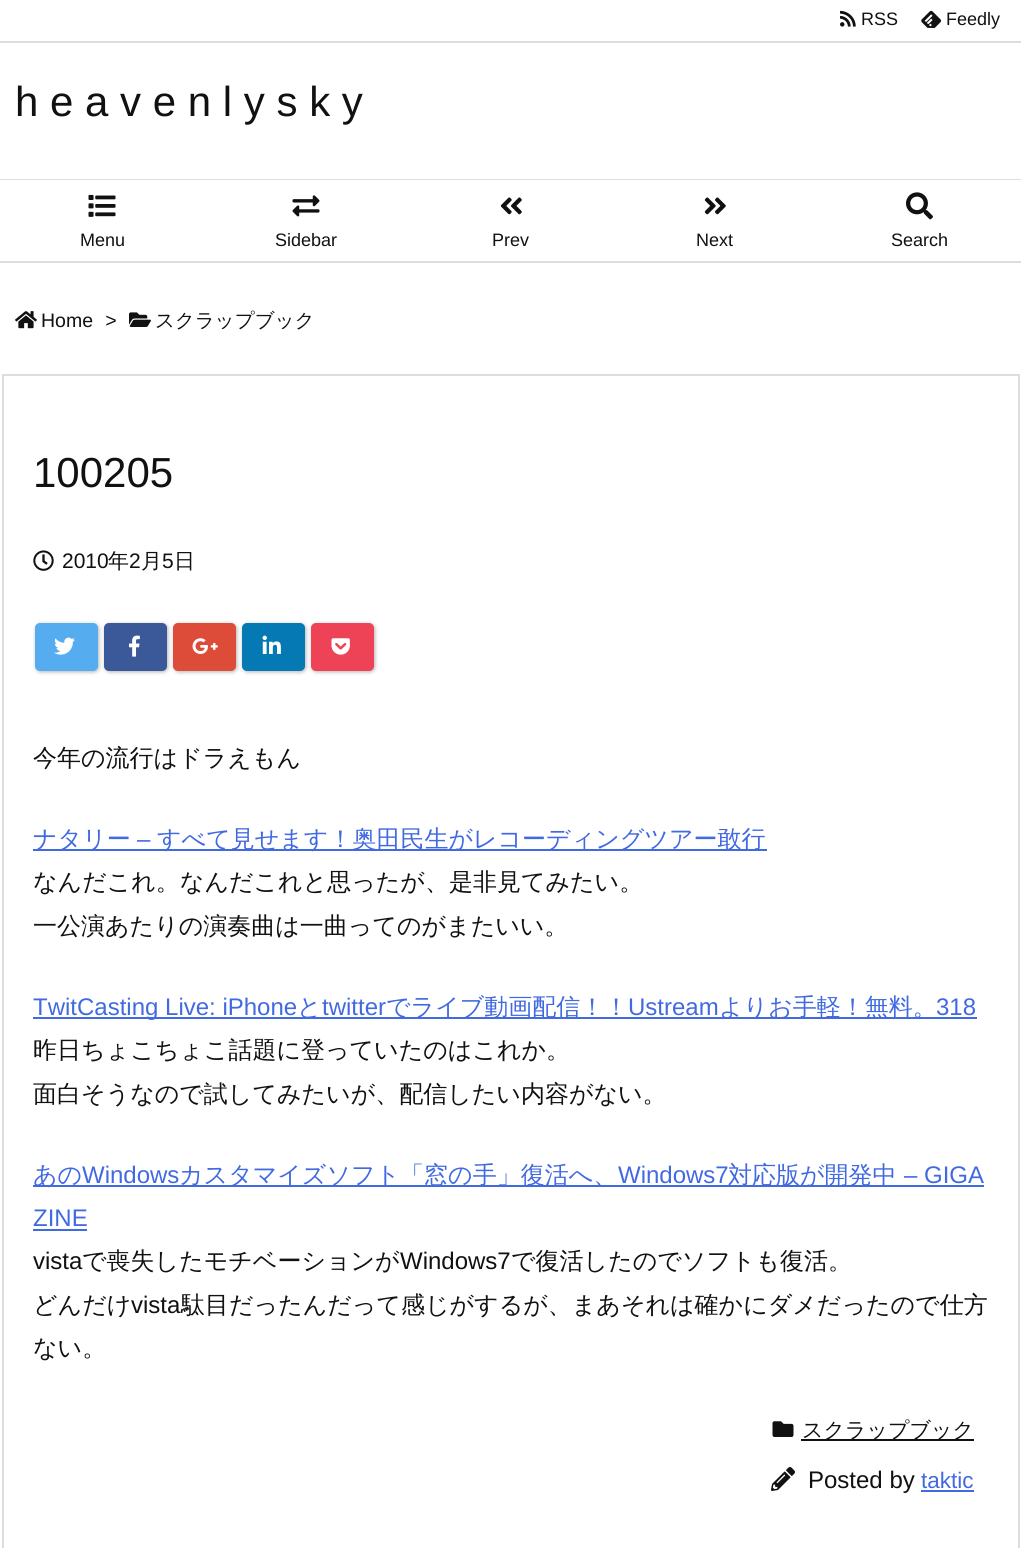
#include <cairo.h>
#include <math.h>
#include <stddef.h>


static void ink(cairo_t *ctx, unsigned color) {
    cairo_set_source_rgb(ctx, (color >> 16) / 255.0, (color >> 8 & 255) / 255.0, (color & 255) / 255.0);
}

static void round_path(cairo_t *ctx, double x, double y, double w, double h, double r) {
    cairo_new_sub_path(ctx);
    cairo_arc(ctx, x + w - r, y + h - r, r, 0, M_PI / 2);
    cairo_arc(ctx, x + r, y + h - r, r, M_PI / 2, M_PI);
    cairo_arc(ctx, x + r, y + r, r, M_PI, 1.5 * M_PI);
    cairo_arc(ctx, x + w - r, y + r, r, 1.5 * M_PI, 2 * M_PI);
    cairo_close_path(ctx);
}

static void blur_box(cairo_t *ctx, double x, double y, double w, double h, double r, double blur, double alpha) {
    cairo_push_group_with_content(ctx, CAIRO_CONTENT_ALPHA);
    cairo_set_operator(ctx, CAIRO_OPERATOR_SOURCE);
    for (int i = 15; i >= -15 && fmin(w, h) + blur * i / 3 > 0; i -= 2) {
        double e = blur * i / 6;
        cairo_set_source_rgba(ctx, 0, 0, 0, alpha * erfc((i - 1) / 8.5) / 2);
        round_path(ctx, x - e, y - e, w + 2 * e, h + 2 * e, fmax(0, fmin(r + e + blur * .6, fmin(w, h) / 2 + e)));
        cairo_fill(ctx);
    }
    cairo_pattern_t *soft = cairo_pop_group(ctx);
    cairo_mask(ctx, soft);
    cairo_pattern_destroy(soft);
}

static void paste(cairo_t *ctx, const char *path, double x, double y, double w, double h) {
    cairo_surface_t *image = cairo_image_surface_create_from_png(path);
    cairo_save(ctx);
    cairo_set_source_surface(ctx, image, x, y);
    cairo_rectangle(ctx, x, y, w, h);
    cairo_fill(ctx);
    cairo_restore(ctx);
    cairo_surface_destroy(image);
}

int main(void) {
    cairo_surface_t *surface = cairo_image_surface_create(CAIRO_FORMAT_RGB24, 1021, 1548);
    cairo_t *ctx = cairo_create(surface);
    cairo_font_options_t *options = cairo_font_options_create();
    cairo_font_options_set_hint_metrics(options, CAIRO_HINT_METRICS_OFF);
    cairo_font_options_set_hint_style(options, CAIRO_HINT_STYLE_NONE);
    cairo_set_font_options(ctx, options);
    cairo_set_miter_limit(ctx, 4);
    ink(ctx, 0xFFFFFF);
    cairo_paint(ctx);
    ink(ctx, 0xDDDDDD);
    cairo_rectangle(ctx, 0, 41, 1021, 2);
    cairo_fill(ctx);
    paste(ctx, "media/1.png", 840, 10, 16, 17);
    cairo_select_font_face(ctx, "Liberation Sans", CAIRO_FONT_SLANT_NORMAL, CAIRO_FONT_WEIGHT_NORMAL);
    cairo_set_font_size(ctx, 18);
    ink(ctx, 0x111111);
    cairo_move_to(ctx, 861, 25);
    cairo_show_text(ctx, "RSS");
    paste(ctx, "media/2.png", 921, 10, 20, 18);
    cairo_move_to(ctx, 946, 25);
    cairo_show_text(ctx, "Feedly");
    ink(ctx, 0xDDDDDD);
    cairo_rectangle(ctx, 0, 179, 1021, 1);
    cairo_fill(ctx);
    cairo_rectangle(ctx, 0, 261, 1021, 2);
    cairo_fill(ctx);
    paste(ctx, "media/3.png", 88, 194, 28, 23);
    ink(ctx, 0x111111);
    cairo_move_to(ctx, 80, 246);
    cairo_show_text(ctx, "Menu");
    paste(ctx, "media/4.png", 292, 195, 28, 22);
    cairo_move_to(ctx, 275, 246);
    cairo_show_text(ctx, "Sidebar");
    paste(ctx, "media/5.png", 500, 197, 22, 18);
    cairo_move_to(ctx, 492, 246);
    cairo_show_text(ctx, "Prev");
    paste(ctx, "media/6.png", 704, 197, 22, 18);
    cairo_move_to(ctx, 696, 246);
    cairo_show_text(ctx, "Next");
    paste(ctx, "media/7.png", 906, 192, 27, 28);
    cairo_move_to(ctx, 891, 246);
    cairo_show_text(ctx, "Search");
    cairo_set_font_size(ctx, 42);
    cairo_move_to(ctx, 15, 116);
    cairo_show_text(ctx, "h e a v e n l y s k y");
    paste(ctx, "media/8.png", 15, 311, 22, 18);
    cairo_set_font_size(ctx, 19.5);
    cairo_move_to(ctx, 41, 327);
    cairo_show_text(ctx, "Home");
    cairo_select_font_face(ctx, "Liberation Sans", CAIRO_FONT_SLANT_ITALIC, CAIRO_FONT_WEIGHT_NORMAL);
    cairo_move_to(ctx, 105, 327);
    cairo_show_text(ctx, ">");
    paste(ctx, "media/9.png", 129, 312, 22, 15);
    cairo_select_font_face(ctx, "WenQuanYi Zen Hei Medium", CAIRO_FONT_SLANT_NORMAL, CAIRO_FONT_WEIGHT_NORMAL);
    cairo_move_to(ctx, 155, 327);
    cairo_show_text(ctx, "スクラップブック");
    cairo_rectangle(ctx, 3, 375, 1016, 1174);
    ink(ctx, 0xDDDDDD);
    cairo_stroke(ctx);
    cairo_select_font_face(ctx, "Liberation Sans", CAIRO_FONT_SLANT_NORMAL, CAIRO_FONT_WEIGHT_NORMAL);
    cairo_set_font_size(ctx, 42);
    ink(ctx, 0x111111);
    cairo_move_to(ctx, 33, 487);
    cairo_show_text(ctx, "100205");
    paste(ctx, "media/10.png", 33, 550, 21, 21);
    cairo_set_font_size(ctx, 21);
    cairo_move_to(ctx, 62, 568);
    cairo_show_text(ctx, "2010");
    cairo_select_font_face(ctx, "WenQuanYi Zen Hei Medium", CAIRO_FONT_SLANT_NORMAL, CAIRO_FONT_WEIGHT_NORMAL);
    cairo_move_to(ctx, 108, 568);
    cairo_show_text(ctx, "年");
    cairo_select_font_face(ctx, "Liberation Sans", CAIRO_FONT_SLANT_NORMAL, CAIRO_FONT_WEIGHT_NORMAL);
    cairo_move_to(ctx, 129, 568);
    cairo_show_text(ctx, "2");
    cairo_select_font_face(ctx, "WenQuanYi Zen Hei Medium", CAIRO_FONT_SLANT_NORMAL, CAIRO_FONT_WEIGHT_NORMAL);
    cairo_move_to(ctx, 141, 568);
    cairo_show_text(ctx, "月");
    cairo_select_font_face(ctx, "Liberation Sans", CAIRO_FONT_SLANT_NORMAL, CAIRO_FONT_WEIGHT_NORMAL);
    cairo_move_to(ctx, 162, 568);
    cairo_show_text(ctx, "5");
    cairo_select_font_face(ctx, "WenQuanYi Zen Hei Medium", CAIRO_FONT_SLANT_NORMAL, CAIRO_FONT_WEIGHT_NORMAL);
    cairo_move_to(ctx, 174, 568);
    cairo_show_text(ctx, "日");
    ink(ctx, 0x000000);
    blur_box(ctx, 36, 624, 63, 48, 5, 2, 0.3);
    ink(ctx, 0x55ACEE);
    round_path(ctx, 35, 623, 63, 48, 5);
    cairo_fill(ctx);
    paste(ctx, "media/11.png", 54, 637, 21, 18);
    ink(ctx, 0x000000);
    blur_box(ctx, 105, 624, 63, 48, 5, 2, 0.3);
    ink(ctx, 0x3B5998);
    round_path(ctx, 104, 623, 63, 48, 5);
    cairo_fill(ctx);
    paste(ctx, "media/12.png", 129, 635, 11, 22);
    ink(ctx, 0x000000);
    blur_box(ctx, 174, 624, 63, 48, 5, 2, 0.3);
    ink(ctx, 0xDD4B39);
    round_path(ctx, 173, 623, 63, 48, 5);
    cairo_fill(ctx);
    paste(ctx, "media/13.png", 192, 638, 26, 16);
    ink(ctx, 0x000000);
    blur_box(ctx, 243, 624, 63, 48, 5, 2, 0.3);
    ink(ctx, 0x0479B4);
    round_path(ctx, 242, 623, 63, 48, 5);
    cairo_fill(ctx);
    paste(ctx, "media/14.png", 262, 635, 19, 19);
    ink(ctx, 0x000000);
    blur_box(ctx, 312, 624, 63, 48, 5, 2, 0.3);
    ink(ctx, 0xEE4257);
    round_path(ctx, 311, 623, 63, 48, 5);
    cairo_fill(ctx);
    paste(ctx, "media/15.png", 331, 638, 19, 17);
    cairo_set_font_size(ctx, 24);
    ink(ctx, 0x111111);
    cairo_move_to(ctx, 33, 766);
    cairo_show_text(ctx, "今年の流行はドラえもん");
    ink(ctx, 0x4169E1);
    cairo_rectangle(ctx, 33, 849, 734, 2);
    cairo_fill(ctx);
    cairo_move_to(ctx, 33, 847);
    cairo_show_text(ctx, "ナタリー");
    cairo_select_font_face(ctx, "Liberation Sans", CAIRO_FONT_SLANT_NORMAL, CAIRO_FONT_WEIGHT_NORMAL);
    cairo_move_to(ctx, 137, 847);
    cairo_show_text(ctx, "–");
    cairo_select_font_face(ctx, "WenQuanYi Zen Hei Medium", CAIRO_FONT_SLANT_NORMAL, CAIRO_FONT_WEIGHT_NORMAL);
    cairo_move_to(ctx, 157, 847);
    cairo_show_text(ctx, "すべて見せます！奥田民生がレコーディングツアー敢行");
    ink(ctx, 0x111111);
    cairo_move_to(ctx, 33, 890);
    cairo_show_text(ctx, "なんだこれ。なんだこれと思ったが、是非見てみたい。");
    cairo_move_to(ctx, 33, 934);
    cairo_show_text(ctx, "一公演あたりの演奏曲は一曲ってのがまたいい。");
    ink(ctx, 0x4169E1);
    cairo_rectangle(ctx, 33, 1017, 944, 2);
    cairo_fill(ctx);
    cairo_select_font_face(ctx, "Liberation Sans", CAIRO_FONT_SLANT_NORMAL, CAIRO_FONT_WEIGHT_NORMAL);
    cairo_move_to(ctx, 33, 1015);
    cairo_show_text(ctx, "TwitCasting Live: iPhone");
    cairo_select_font_face(ctx, "WenQuanYi Zen Hei Medium", CAIRO_FONT_SLANT_NORMAL, CAIRO_FONT_WEIGHT_NORMAL);
    cairo_move_to(ctx, 297, 1015);
    cairo_show_text(ctx, "と");
    cairo_select_font_face(ctx, "Liberation Sans", CAIRO_FONT_SLANT_NORMAL, CAIRO_FONT_WEIGHT_NORMAL);
    cairo_move_to(ctx, 322, 1015);
    cairo_show_text(ctx, "twitter");
    cairo_select_font_face(ctx, "WenQuanYi Zen Hei Medium", CAIRO_FONT_SLANT_NORMAL, CAIRO_FONT_WEIGHT_NORMAL);
    cairo_move_to(ctx, 386, 1015);
    cairo_show_text(ctx, "でライブ動画配信！！");
    cairo_select_font_face(ctx, "Liberation Sans", CAIRO_FONT_SLANT_NORMAL, CAIRO_FONT_WEIGHT_NORMAL);
    cairo_move_to(ctx, 628, 1015);
    cairo_show_text(ctx, "Ustream");
    cairo_select_font_face(ctx, "WenQuanYi Zen Hei Medium", CAIRO_FONT_SLANT_NORMAL, CAIRO_FONT_WEIGHT_NORMAL);
    cairo_move_to(ctx, 719, 1015);
    cairo_show_text(ctx, "よりお手軽！無料。");
    cairo_select_font_face(ctx, "Liberation Sans", CAIRO_FONT_SLANT_NORMAL, CAIRO_FONT_WEIGHT_NORMAL);
    cairo_move_to(ctx, 936, 1015);
    cairo_show_text(ctx, "318");
    cairo_select_font_face(ctx, "WenQuanYi Zen Hei Medium", CAIRO_FONT_SLANT_NORMAL, CAIRO_FONT_WEIGHT_NORMAL);
    ink(ctx, 0x111111);
    cairo_move_to(ctx, 33, 1058);
    cairo_show_text(ctx, "昨日ちょこちょこ話題に登っていたのはこれか。");
    cairo_move_to(ctx, 33, 1102);
    cairo_show_text(ctx, "面白そうなので試してみたいが、配信したい内容がない。");
    ink(ctx, 0x4169E1);
    cairo_rectangle(ctx, 33, 1185, 951, 2);
    cairo_fill(ctx);
    cairo_move_to(ctx, 33, 1183);
    cairo_show_text(ctx, "あの");
    cairo_select_font_face(ctx, "Liberation Sans", CAIRO_FONT_SLANT_NORMAL, CAIRO_FONT_WEIGHT_NORMAL);
    cairo_move_to(ctx, 82, 1183);
    cairo_show_text(ctx, "Windows");
    cairo_select_font_face(ctx, "WenQuanYi Zen Hei Medium", CAIRO_FONT_SLANT_NORMAL, CAIRO_FONT_WEIGHT_NORMAL);
    cairo_move_to(ctx, 179, 1183);
    cairo_show_text(ctx, "カスタマイズソフト「窓の手」復活へ、");
    cairo_select_font_face(ctx, "Liberation Sans", CAIRO_FONT_SLANT_NORMAL, CAIRO_FONT_WEIGHT_NORMAL);
    cairo_move_to(ctx, 618, 1183);
    cairo_show_text(ctx, "Windows7");
    cairo_select_font_face(ctx, "WenQuanYi Zen Hei Medium", CAIRO_FONT_SLANT_NORMAL, CAIRO_FONT_WEIGHT_NORMAL);
    cairo_move_to(ctx, 728, 1183);
    cairo_show_text(ctx, "対応版が開発中");
    cairo_select_font_face(ctx, "Liberation Sans", CAIRO_FONT_SLANT_NORMAL, CAIRO_FONT_WEIGHT_NORMAL);
    cairo_move_to(ctx, 904, 1183);
    cairo_show_text(ctx, "– GIGA");
    cairo_move_to(ctx, 33, 1226);
    cairo_show_text(ctx, "ZINE");
    cairo_rectangle(ctx, 33, 1229, 54, 2);
    cairo_fill(ctx);
    ink(ctx, 0x111111);
    cairo_move_to(ctx, 33, 1269);
    cairo_show_text(ctx, "vista");
    cairo_select_font_face(ctx, "WenQuanYi Zen Hei Medium", CAIRO_FONT_SLANT_NORMAL, CAIRO_FONT_WEIGHT_NORMAL);
    cairo_move_to(ctx, 82, 1269);
    cairo_show_text(ctx, "で喪失したモチベーションが");
    cairo_select_font_face(ctx, "Liberation Sans", CAIRO_FONT_SLANT_NORMAL, CAIRO_FONT_WEIGHT_NORMAL);
    cairo_move_to(ctx, 400, 1269);
    cairo_show_text(ctx, "Windows7");
    cairo_select_font_face(ctx, "WenQuanYi Zen Hei Medium", CAIRO_FONT_SLANT_NORMAL, CAIRO_FONT_WEIGHT_NORMAL);
    cairo_move_to(ctx, 511, 1269);
    cairo_show_text(ctx, "で復活したのでソフトも復活。");
    cairo_move_to(ctx, 33, 1313);
    cairo_show_text(ctx, "どんだけ");
    cairo_select_font_face(ctx, "Liberation Sans", CAIRO_FONT_SLANT_NORMAL, CAIRO_FONT_WEIGHT_NORMAL);
    cairo_move_to(ctx, 131, 1313);
    cairo_show_text(ctx, "vista");
    cairo_select_font_face(ctx, "WenQuanYi Zen Hei Medium", CAIRO_FONT_SLANT_NORMAL, CAIRO_FONT_WEIGHT_NORMAL);
    cairo_move_to(ctx, 181, 1313);
    cairo_show_text(ctx, "駄目だったんだって感じがするが、まあそれは確かにダメだったので仕方");
    cairo_move_to(ctx, 33, 1356);
    cairo_show_text(ctx, "ない。");
    paste(ctx, "media/16.png", 772, 1421, 22, 16);
    cairo_rectangle(ctx, 801, 1439, 173, 2);
    cairo_fill(ctx);
    cairo_set_font_size(ctx, 21);
    cairo_move_to(ctx, 802, 1437);
    cairo_show_text(ctx, "スクラップブック");
    paste(ctx, "media/17.png", 771, 1467, 24, 24);
    cairo_select_font_face(ctx, "Liberation Sans", CAIRO_FONT_SLANT_NORMAL, CAIRO_FONT_WEIGHT_NORMAL);
    cairo_set_font_size(ctx, 24);
    cairo_move_to(ctx, 808, 1488);
    cairo_show_text(ctx, "Posted by");
    cairo_set_font_size(ctx, 22.5);
    ink(ctx, 0x4169E1);
    cairo_move_to(ctx, 921, 1488);
    cairo_show_text(ctx, "taktic");
    cairo_rectangle(ctx, 921, 1490, 53, 2);
    cairo_fill(ctx);
    cairo_surface_write_to_png(surface, "image.png");
    cairo_font_options_destroy(options);
    cairo_destroy(ctx);
    cairo_surface_destroy(surface);
    return 0;
}
